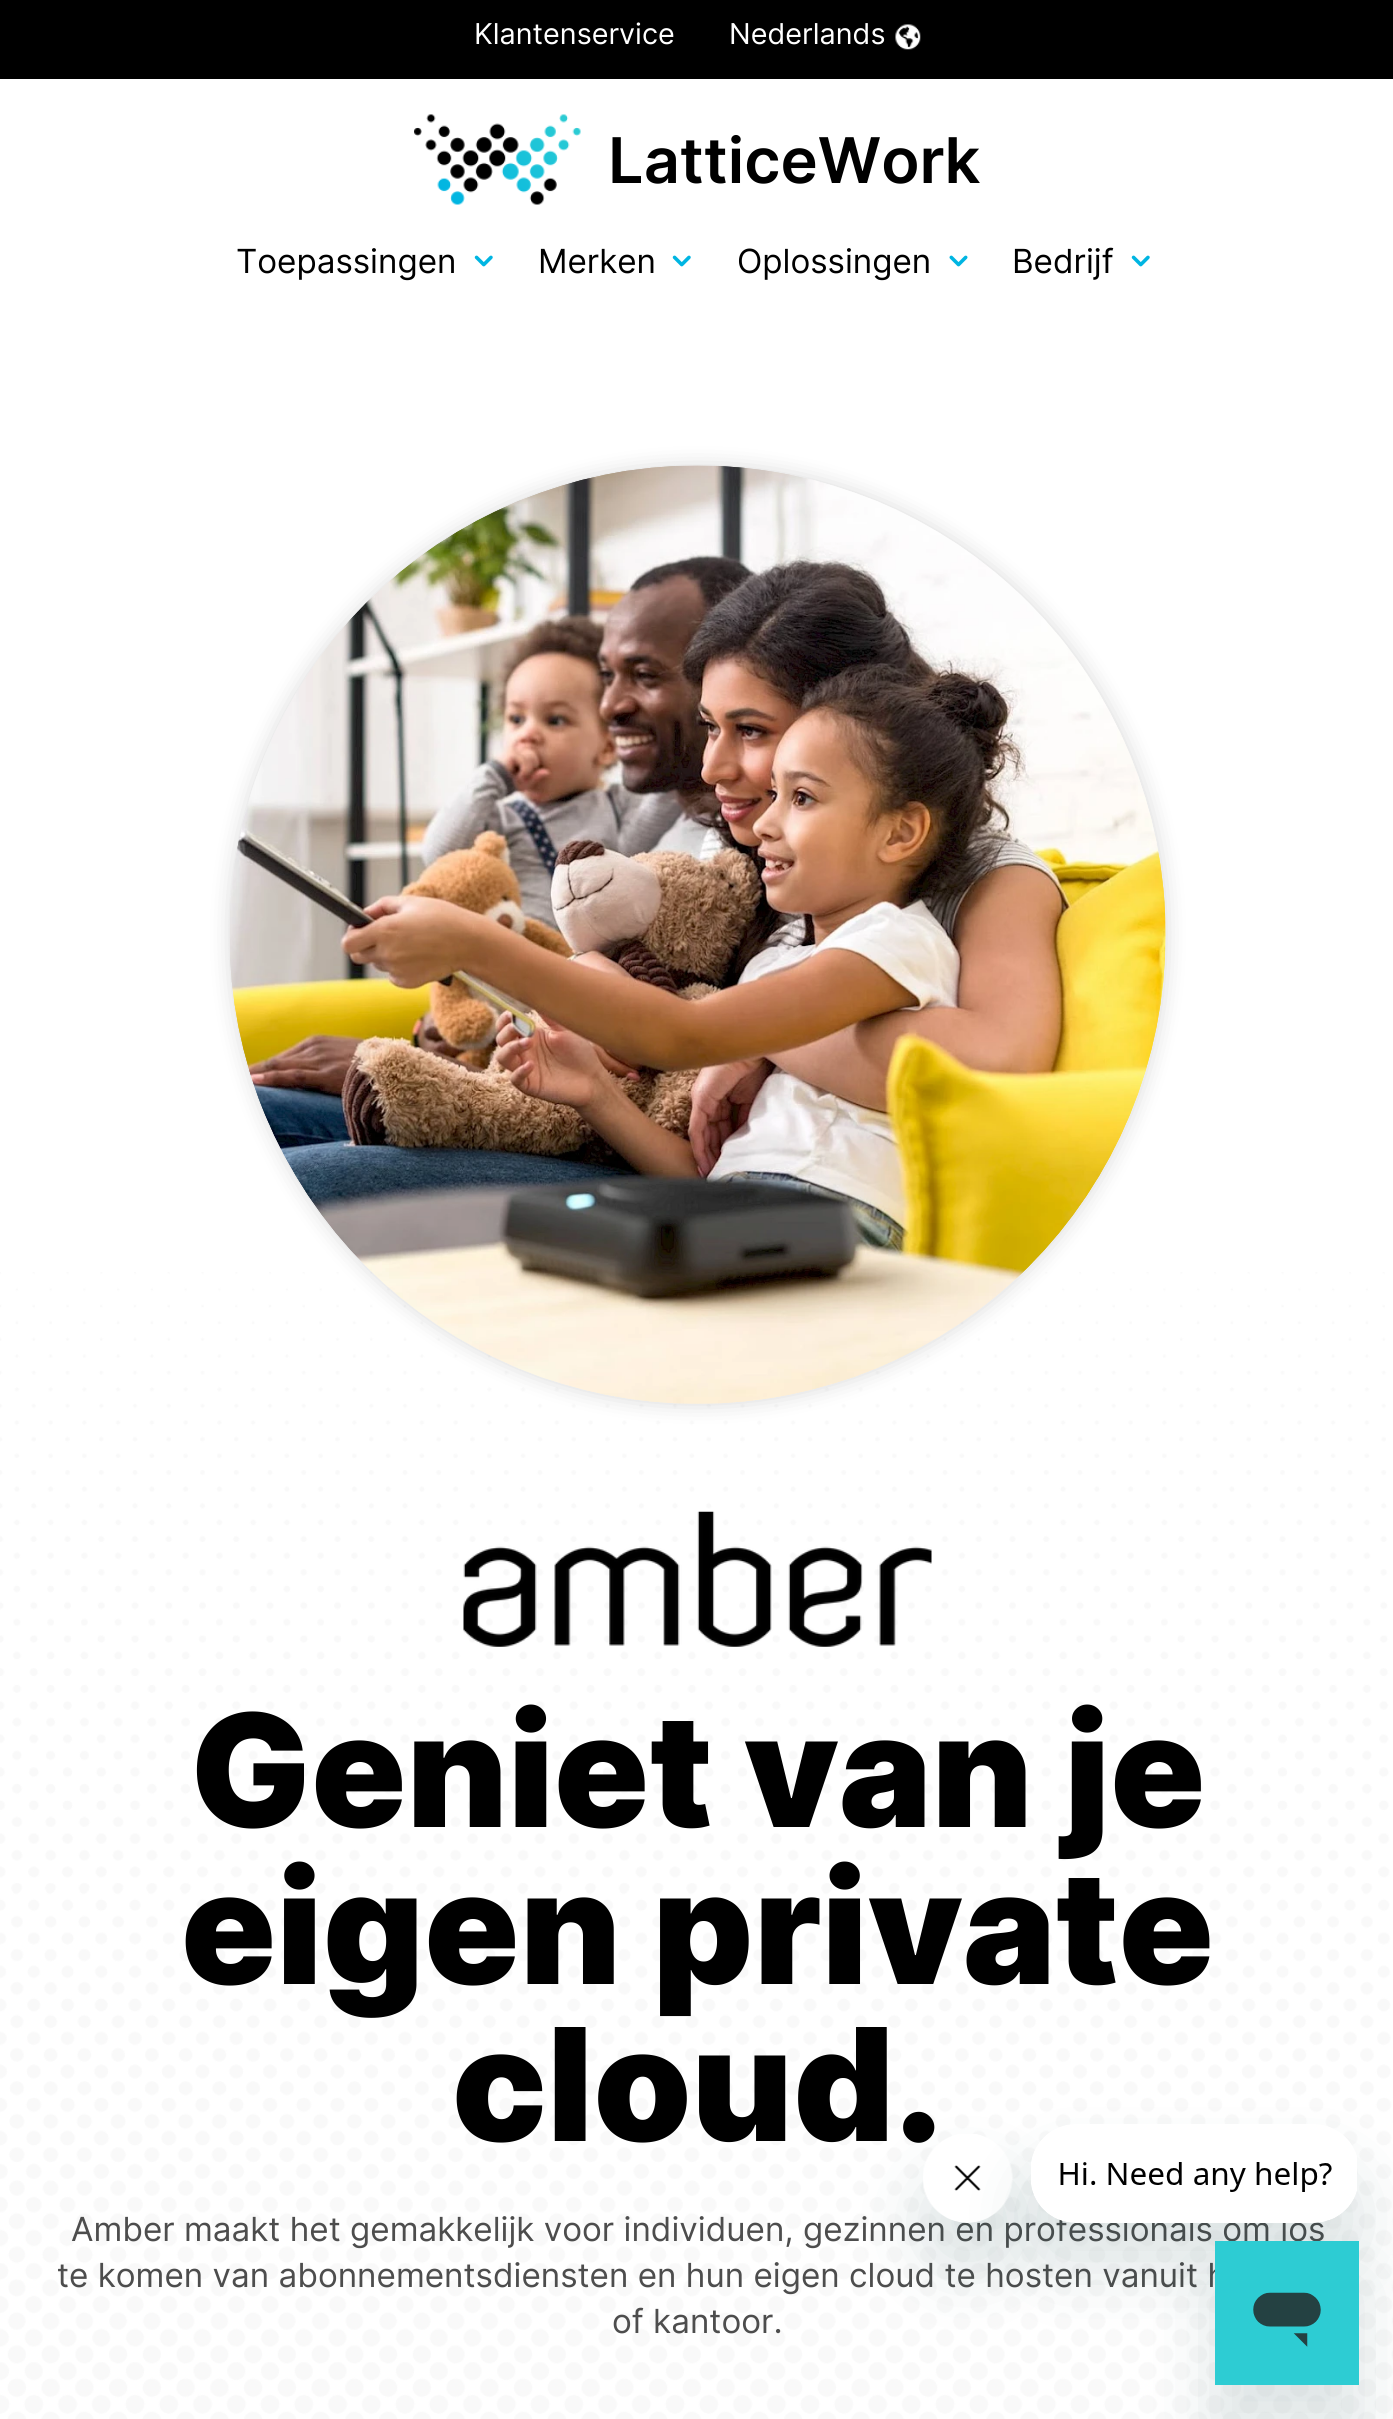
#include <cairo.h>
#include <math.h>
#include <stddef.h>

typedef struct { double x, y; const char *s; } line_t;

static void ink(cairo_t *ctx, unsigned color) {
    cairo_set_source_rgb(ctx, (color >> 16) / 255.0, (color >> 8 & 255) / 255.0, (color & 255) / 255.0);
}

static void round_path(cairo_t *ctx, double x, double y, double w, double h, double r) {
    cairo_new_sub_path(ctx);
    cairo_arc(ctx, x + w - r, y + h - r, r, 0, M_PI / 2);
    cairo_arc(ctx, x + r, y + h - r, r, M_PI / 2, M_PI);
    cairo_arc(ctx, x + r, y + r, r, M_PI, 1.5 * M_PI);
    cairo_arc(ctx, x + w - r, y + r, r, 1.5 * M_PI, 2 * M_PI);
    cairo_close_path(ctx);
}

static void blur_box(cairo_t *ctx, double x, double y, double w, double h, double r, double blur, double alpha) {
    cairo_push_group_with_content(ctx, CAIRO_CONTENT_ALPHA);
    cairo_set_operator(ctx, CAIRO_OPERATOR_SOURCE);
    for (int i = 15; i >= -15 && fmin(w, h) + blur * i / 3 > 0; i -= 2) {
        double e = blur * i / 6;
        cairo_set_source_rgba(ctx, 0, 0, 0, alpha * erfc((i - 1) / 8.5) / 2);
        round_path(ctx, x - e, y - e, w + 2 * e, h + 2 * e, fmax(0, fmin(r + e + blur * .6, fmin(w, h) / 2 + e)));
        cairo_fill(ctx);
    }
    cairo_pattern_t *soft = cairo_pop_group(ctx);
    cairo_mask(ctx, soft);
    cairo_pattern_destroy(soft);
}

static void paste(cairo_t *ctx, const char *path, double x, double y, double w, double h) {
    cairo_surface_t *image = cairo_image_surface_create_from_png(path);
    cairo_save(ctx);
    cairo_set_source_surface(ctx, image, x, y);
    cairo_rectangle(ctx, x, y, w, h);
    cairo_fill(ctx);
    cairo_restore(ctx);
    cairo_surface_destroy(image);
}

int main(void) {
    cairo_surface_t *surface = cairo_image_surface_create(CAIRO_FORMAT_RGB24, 1393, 2419);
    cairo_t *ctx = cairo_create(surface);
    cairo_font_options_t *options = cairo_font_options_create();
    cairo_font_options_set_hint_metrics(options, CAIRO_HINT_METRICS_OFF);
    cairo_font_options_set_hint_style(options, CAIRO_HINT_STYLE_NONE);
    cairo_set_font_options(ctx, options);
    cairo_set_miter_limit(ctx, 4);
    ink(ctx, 0xFFFFFF);
    cairo_paint(ctx);
    ink(ctx, 0x000000);
    cairo_rectangle(ctx, 0, 0, 1393, 79);
    cairo_fill(ctx);
    cairo_select_font_face(ctx, "Inter", CAIRO_FONT_SLANT_NORMAL, CAIRO_FONT_WEIGHT_NORMAL);
    cairo_set_font_size(ctx, 28.75);
    ink(ctx, 0xFFFFFF);
    cairo_move_to(ctx, 474, 44);
    cairo_show_text(ctx, "Klantenservice");
    cairo_move_to(ctx, 729, 44);
    cairo_show_text(ctx, "Nederlands");
    paste(ctx, "media/1.png", 895, 24, 26, 26);
    paste(ctx, "media/2.png", 414, 114, 167, 91);
    cairo_select_font_face(ctx, "Inter SemiBold", CAIRO_FONT_SLANT_NORMAL, CAIRO_FONT_WEIGHT_NORMAL);
    cairo_set_font_size(ctx, 63);
    ink(ctx, 0x000000);
    cairo_move_to(ctx, 608, 183);
    cairo_show_text(ctx, "LatticeWork");
    cairo_select_font_face(ctx, "Inter", CAIRO_FONT_SLANT_NORMAL, CAIRO_FONT_WEIGHT_NORMAL);
    cairo_set_font_size(ctx, 33.2);
    cairo_move_to(ctx, 236, 273);
    cairo_show_text(ctx, "Toepassingen");
    paste(ctx, "media/3.png", 474, 255, 19, 12);
    cairo_move_to(ctx, 538, 273);
    cairo_show_text(ctx, "Merken");
    paste(ctx, "media/3.png", 672, 255, 19, 12);
    cairo_move_to(ctx, 737, 273);
    cairo_show_text(ctx, "Oplossingen");
    paste(ctx, "media/4.png", 949, 255, 19, 12);
    cairo_move_to(ctx, 1012, 273);
    cairo_show_text(ctx, "Bedrijf");
    paste(ctx, "media/3.png", 1131, 255, 19, 12);
    paste(ctx, "media/5.png", 0, 1272, 1393, 1147);
    ink(ctx, 0x000000);
    blur_box(ctx, 230, 466, 936, 938, 468, 11, 0.15);
    paste(ctx, "media/6.png", 229, 465, 937, 939);
    paste(ctx, "media/7.png", 230, 465, 936, 939);
    paste(ctx, "media/8.png", 463, 1511, 469, 136);
    cairo_select_font_face(ctx, "Inter Black", CAIRO_FONT_SLANT_NORMAL, CAIRO_FONT_WEIGHT_NORMAL);
    cairo_set_font_size(ctx, 156.75);
    ink(ctx, 0x000000);
    {
        static const line_t items[] = {
            {190, 1827, "Geniet van je"},
            {181, 1984, "eigen private"},
            {452, 2141, "cloud."},
        };
        for (size_t i = 0; i < sizeof items / sizeof *items; i++) {
            cairo_move_to(ctx, items[i].x, items[i].y);
            cairo_show_text(ctx, items[i].s);
        }
    }
    cairo_select_font_face(ctx, "Inter", CAIRO_FONT_SLANT_NORMAL, CAIRO_FONT_WEIGHT_NORMAL);
    cairo_set_font_size(ctx, 33.2);
    ink(ctx, 0x4D4D4D);
    {
        static const line_t items[] = {
            {71, 2241, "Amber maakt het gemakkelijk voor individuen, gezinnen en professionals om los"},
            {57, 2287, "te komen van abonnementsdiensten en hun eigen cloud te hosten vanuit h"},
            {612, 2333, "of kantoor."},
        };
        for (size_t i = 0; i < sizeof items / sizeof *items; i++) {
            cairo_move_to(ctx, items[i].x, items[i].y);
            cairo_show_text(ctx, items[i].s);
        }
    }
    ink(ctx, 0x17494D);
    blur_box(ctx, 923, 2178, 90, 90, 45, 34, 0.15);
    paste(ctx, "media/10.png", 923, 2134, 90, 89);
    blur_box(ctx, 1031, 2169, 328, 99, 45, 34, 0.15);
    paste(ctx, "media/9.png", 1031, 2124, 326, 99);
    blur_box(ctx, 1215, 2286, 144, 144, 0, 34, 0.15);
    paste(ctx, "media/11.png", 1215, 2241, 144, 144);
    cairo_surface_write_to_png(surface, "image.png");
    cairo_font_options_destroy(options);
    cairo_destroy(ctx);
    cairo_surface_destroy(surface);
    return 0;
}
